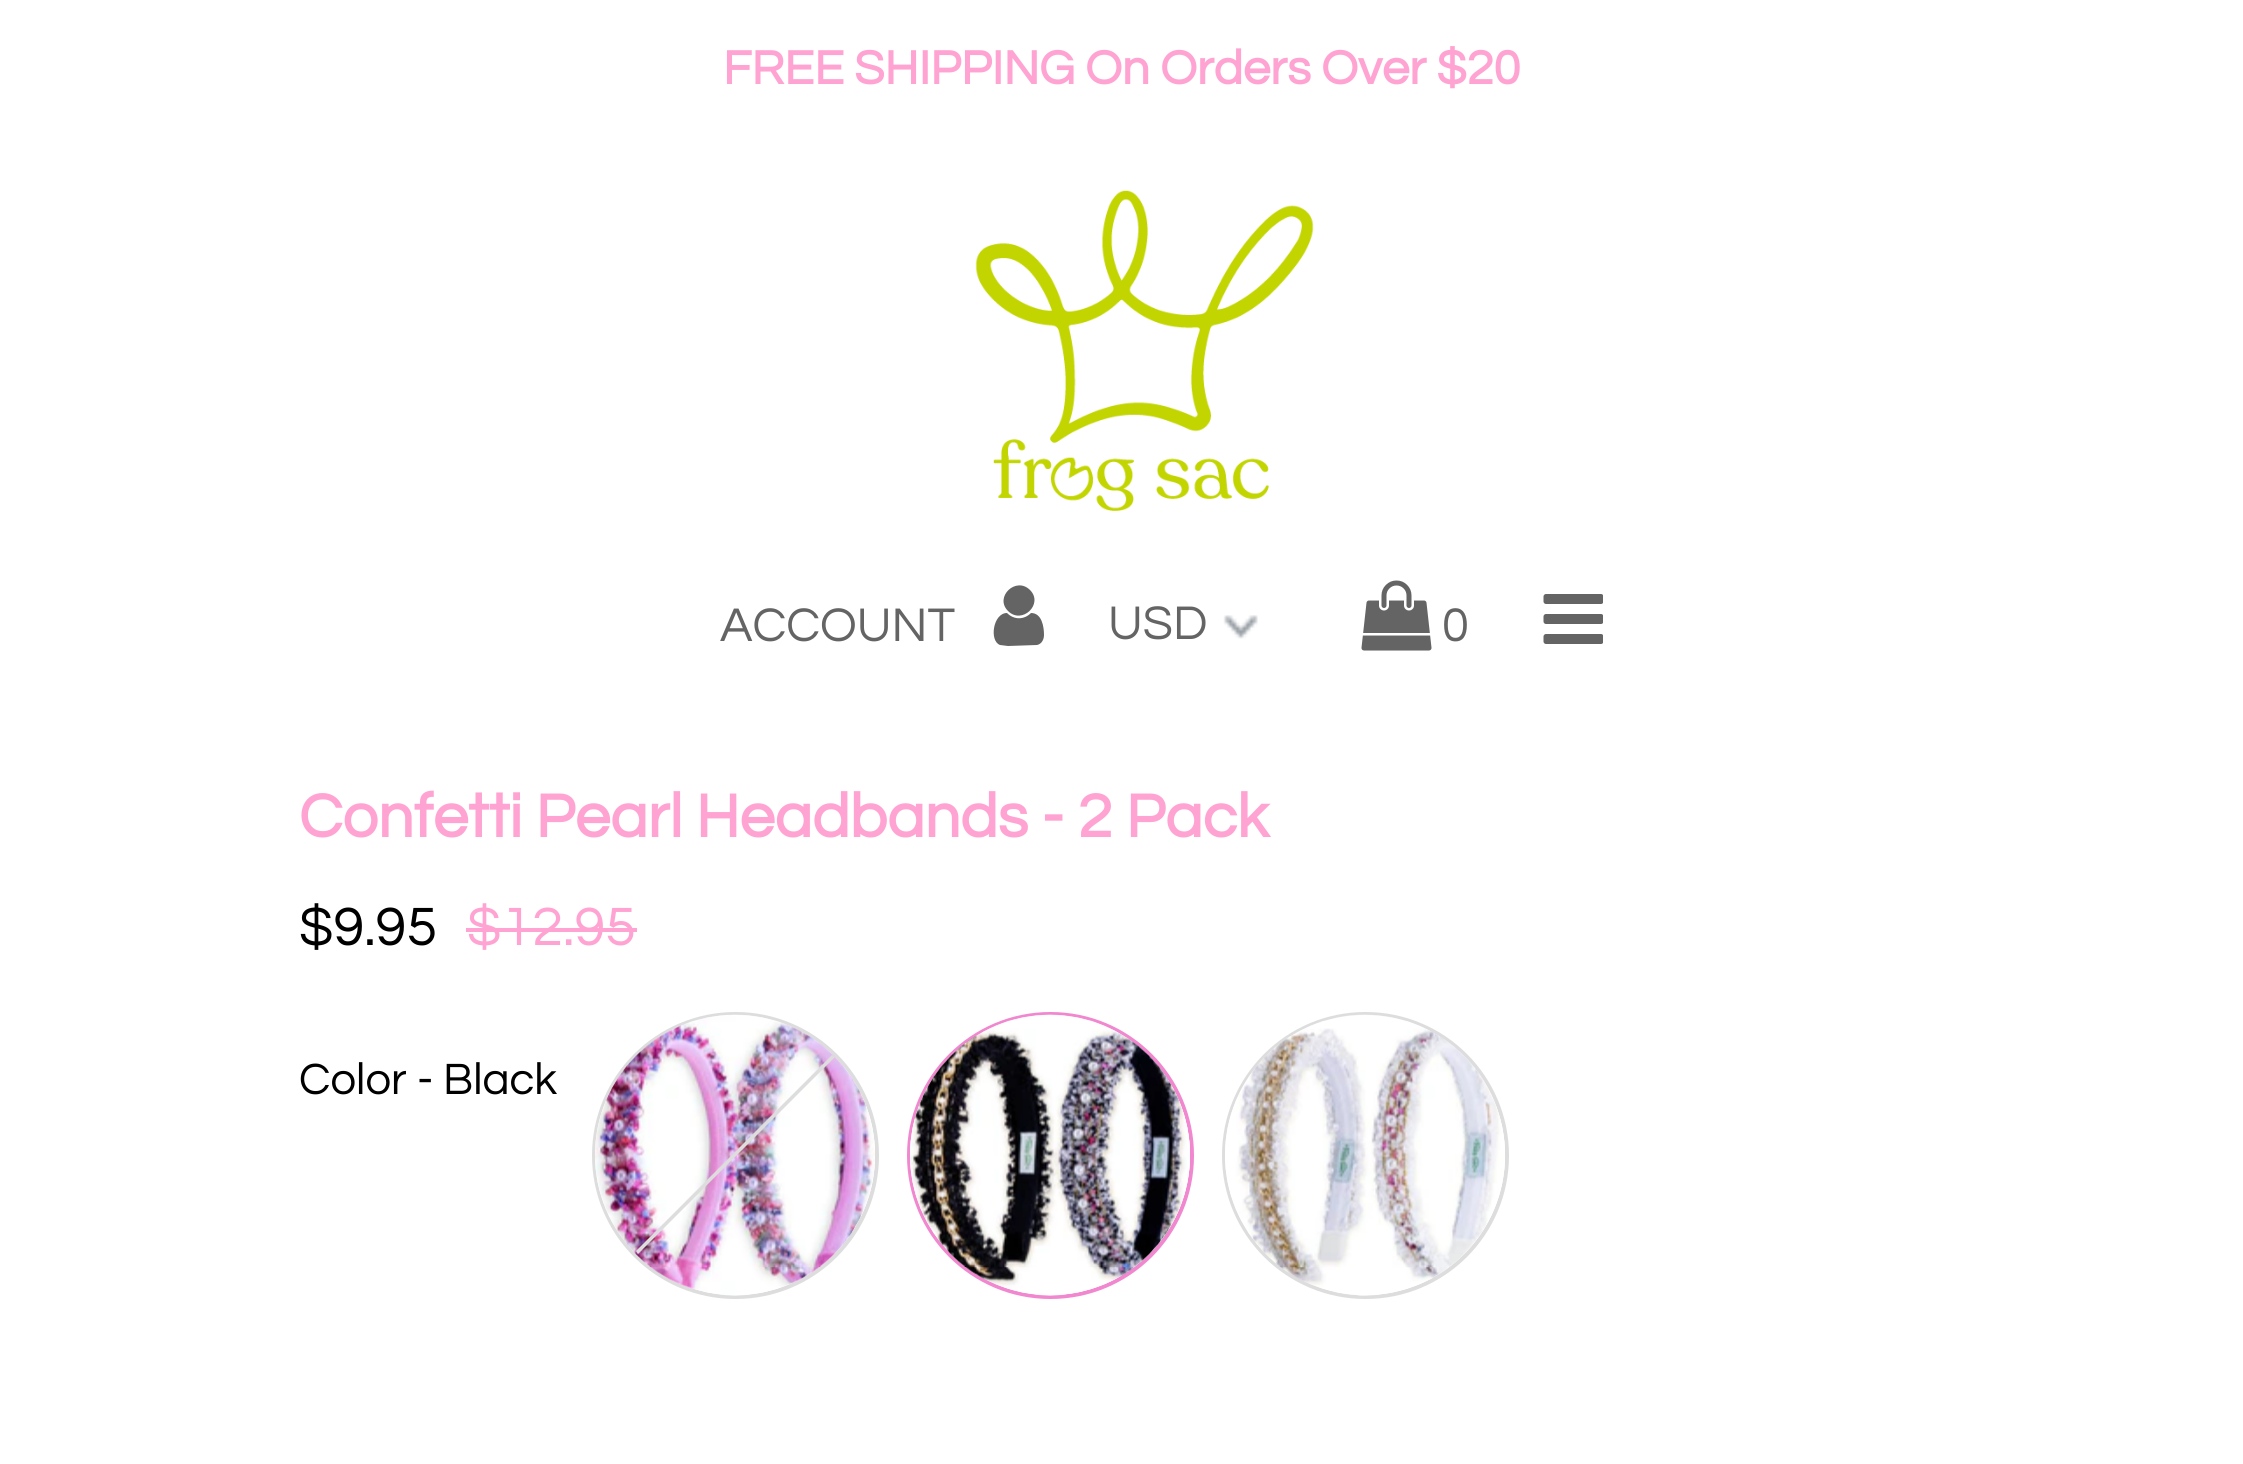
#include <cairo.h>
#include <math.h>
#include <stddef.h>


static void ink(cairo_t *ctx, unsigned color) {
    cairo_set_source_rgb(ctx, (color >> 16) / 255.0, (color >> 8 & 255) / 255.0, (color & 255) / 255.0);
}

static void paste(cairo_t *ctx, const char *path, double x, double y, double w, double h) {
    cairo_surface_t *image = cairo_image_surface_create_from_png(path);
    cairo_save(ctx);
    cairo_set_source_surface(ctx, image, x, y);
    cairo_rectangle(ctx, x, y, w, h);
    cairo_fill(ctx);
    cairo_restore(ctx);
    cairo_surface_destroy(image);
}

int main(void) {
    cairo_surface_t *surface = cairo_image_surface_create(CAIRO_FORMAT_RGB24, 2243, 1464);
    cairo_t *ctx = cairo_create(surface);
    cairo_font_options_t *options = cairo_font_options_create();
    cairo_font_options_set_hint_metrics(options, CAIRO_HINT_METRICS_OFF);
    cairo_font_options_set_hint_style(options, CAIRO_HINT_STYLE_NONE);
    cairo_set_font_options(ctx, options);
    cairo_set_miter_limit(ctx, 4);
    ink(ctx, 0xFFFFFF);
    cairo_paint(ctx);
    cairo_select_font_face(ctx, "Questrial", CAIRO_FONT_SLANT_NORMAL, CAIRO_FONT_WEIGHT_BOLD);
    cairo_set_font_size(ctx, 49);
    ink(ctx, 0xFFA4D2);
    cairo_move_to(ctx, 723, 84);
    cairo_show_text(ctx, "FREE SHIPPING On Orders Over $20");
    paste(ctx, "media/1.png", 975, 190, 339, 321);
    cairo_select_font_face(ctx, "Questrial", CAIRO_FONT_SLANT_NORMAL, CAIRO_FONT_WEIGHT_NORMAL);
    ink(ctx, 0x646464);
    cairo_move_to(ctx, 720, 641);
    cairo_show_text(ctx, "ACCOUNT");
    cairo_new_path(ctx);
    cairo_move_to(ctx, 1044, 635);
    cairo_curve_to(ctx, 1044, 639, 1042, 644, 1037, 645);
    cairo_line_to(ctx, 1008, 646);
    cairo_line_to(ctx, 1000, 645);
    cairo_curve_to(ctx, 989, 641, 993, 613, 1007, 613);
    cairo_curve_to(ctx, 1014, 620, 1024, 620, 1031, 613);
    cairo_curve_to(ctx, 1042, 613, 1044, 627, 1044, 635);
    cairo_close_path(ctx);
    cairo_move_to(ctx, 1030, 590);
    cairo_curve_to(ctx, 1044, 604, 1022, 625, 1008, 611);
    cairo_curve_to(ctx, 994, 597, 1016, 576, 1030, 590);
    cairo_close_path(ctx);
    cairo_fill(ctx);
    paste(ctx, "media/2.png", 1223, 615, 35, 24);
    cairo_move_to(ctx, 1108, 639);
    cairo_show_text(ctx, "USD");
    paste(ctx, "media/3.png", 1361, 580, 71, 71);
    cairo_move_to(ctx, 1442, 641);
    cairo_show_text(ctx, "0");
    paste(ctx, "media/4.png", 1543, 594, 60, 50);
    cairo_select_font_face(ctx, "Questrial", CAIRO_FONT_SLANT_NORMAL, CAIRO_FONT_WEIGHT_BOLD);
    cairo_set_font_size(ctx, 63);
    ink(ctx, 0xFFA4D2);
    cairo_move_to(ctx, 299, 837);
    cairo_show_text(ctx, "Confetti Pearl Headbands - 2 Pack");
    cairo_select_font_face(ctx, "Questrial", CAIRO_FONT_SLANT_NORMAL, CAIRO_FONT_WEIGHT_NORMAL);
    cairo_set_font_size(ctx, 56);
    ink(ctx, 0x000000);
    cairo_move_to(ctx, 299, 945);
    cairo_show_text(ctx, "$9.95");
    ink(ctx, 0xFFA4D2);
    cairo_move_to(ctx, 467, 945);
    cairo_show_text(ctx, "$12.95");
    cairo_rectangle(ctx, 466, 928, 171, 4);
    cairo_fill(ctx);
    cairo_set_font_size(ctx, 45.5);
    ink(ctx, 0x000000);
    cairo_move_to(ctx, 299, 1094);
    cairo_show_text(ctx, "Color");
    cairo_move_to(ctx, 417, 1094);
    cairo_show_text(ctx, "- Black");
    cairo_new_path(ctx);
    cairo_arc(ctx, 735.5, 1155.5, 141.5, 0, 2 * M_PI);
    ink(ctx, 0xDDDDDD);
    cairo_set_line_width(ctx, 4);
    cairo_stroke(ctx);
    ink(ctx, 0xFFFFFF);
    cairo_arc(ctx, 735, 1155, 140, 0, 2 * M_PI);
    cairo_fill(ctx);
    paste(ctx, "media/5.png", 595, 1014, 280, 282);
    paste(ctx, "media/6.png", 606, 1015, 260, 281);
    ink(ctx, 0xDDDDDD);
    cairo_new_path(ctx);
    cairo_move_to(ctx, 832, 1055);
    cairo_line_to(ctx, 835, 1057);
    cairo_line_to(ctx, 638, 1254);
    cairo_line_to(ctx, 636, 1251);
    cairo_close_path(ctx);
    cairo_fill(ctx);
    cairo_arc(ctx, 1050.5, 1155.5, 141.5, 0, 2 * M_PI);
    ink(ctx, 0xF087CF);
    cairo_stroke(ctx);
    ink(ctx, 0xFFFFFF);
    cairo_arc(ctx, 1050, 1155, 140, 0, 2 * M_PI);
    cairo_fill(ctx);
    paste(ctx, "media/7.png", 910, 1014, 280, 282);
    paste(ctx, "media/8.png", 910, 1014, 280, 282);
    cairo_arc(ctx, 1365.5, 1155.5, 141.5, 0, 2 * M_PI);
    ink(ctx, 0xDDDDDD);
    cairo_stroke(ctx);
    ink(ctx, 0xFFFFFF);
    cairo_arc(ctx, 1365, 1155, 140, 0, 2 * M_PI);
    cairo_fill(ctx);
    paste(ctx, "media/9.png", 1225, 1014, 280, 282);
    paste(ctx, "media/10.png", 1252, 1021, 227, 275);
    cairo_surface_write_to_png(surface, "image.png");
    cairo_font_options_destroy(options);
    cairo_destroy(ctx);
    cairo_surface_destroy(surface);
    return 0;
}
